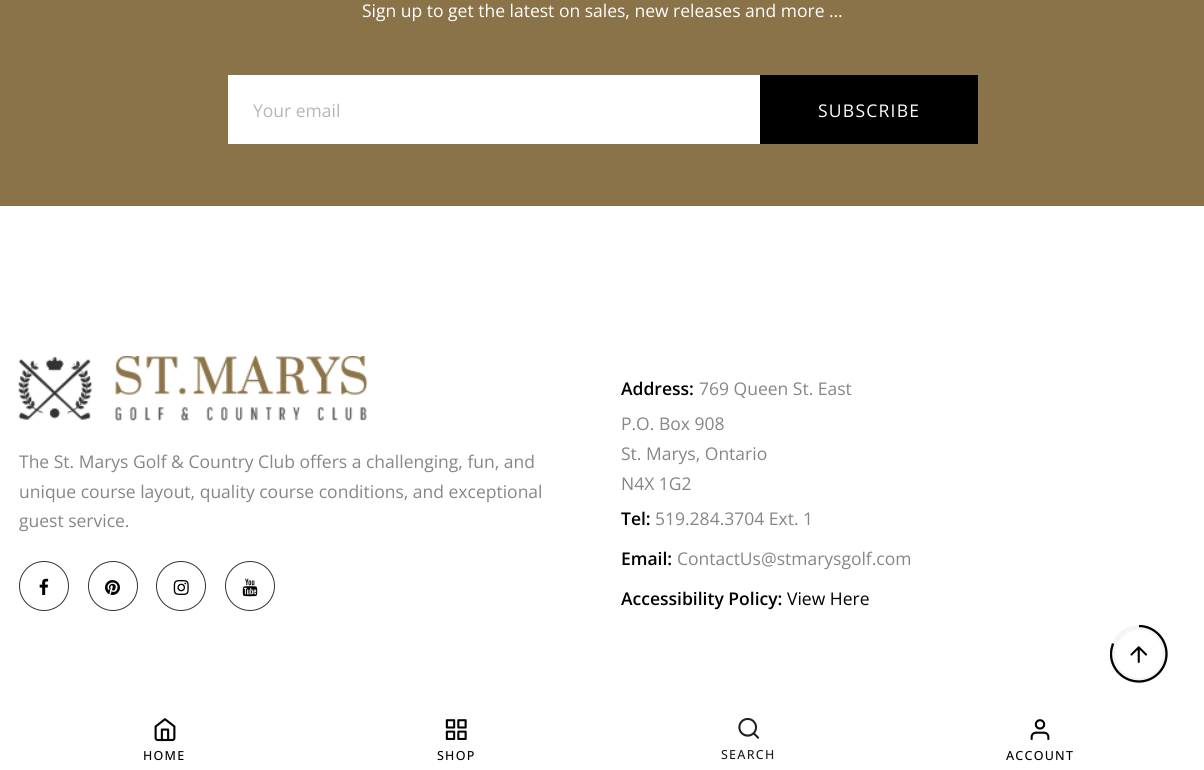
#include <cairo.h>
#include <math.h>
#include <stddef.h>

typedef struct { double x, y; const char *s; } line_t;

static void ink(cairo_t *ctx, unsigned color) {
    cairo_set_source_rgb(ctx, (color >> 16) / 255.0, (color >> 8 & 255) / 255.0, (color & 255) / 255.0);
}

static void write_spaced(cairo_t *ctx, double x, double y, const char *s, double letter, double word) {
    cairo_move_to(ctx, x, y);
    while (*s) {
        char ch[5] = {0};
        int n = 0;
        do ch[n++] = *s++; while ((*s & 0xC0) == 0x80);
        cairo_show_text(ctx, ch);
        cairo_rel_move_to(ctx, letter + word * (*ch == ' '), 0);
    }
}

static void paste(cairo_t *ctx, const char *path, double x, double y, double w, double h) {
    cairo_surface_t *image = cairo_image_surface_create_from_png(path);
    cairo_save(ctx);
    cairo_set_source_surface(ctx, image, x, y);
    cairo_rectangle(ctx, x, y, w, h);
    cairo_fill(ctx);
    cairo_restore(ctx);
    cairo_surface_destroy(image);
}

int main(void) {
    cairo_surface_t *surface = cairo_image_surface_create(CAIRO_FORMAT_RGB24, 1204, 770);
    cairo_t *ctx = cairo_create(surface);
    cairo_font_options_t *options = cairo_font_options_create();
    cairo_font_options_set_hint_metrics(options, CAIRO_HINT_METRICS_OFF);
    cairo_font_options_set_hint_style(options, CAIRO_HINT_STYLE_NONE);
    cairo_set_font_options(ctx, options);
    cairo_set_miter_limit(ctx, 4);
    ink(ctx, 0xFFFFFF);
    cairo_paint(ctx);
    ink(ctx, 0x8B7349);
    cairo_rectangle(ctx, 0, 0, 1204, 206);
    cairo_fill(ctx);
    cairo_select_font_face(ctx, "Open Sans", CAIRO_FONT_SLANT_NORMAL, CAIRO_FONT_WEIGHT_NORMAL);
    cairo_set_font_size(ctx, 17.5);
    ink(ctx, 0xFFFFFF);
    cairo_move_to(ctx, 362, 17);
    cairo_show_text(ctx, "Sign up to get the latest on sales, new releases and more …");
    cairo_rectangle(ctx, 228, 75, 532, 69);
    cairo_fill(ctx);
    ink(ctx, 0xB6B6B6);
    cairo_move_to(ctx, 253, 117);
    cairo_show_text(ctx, "Your email");
    ink(ctx, 0x000000);
    cairo_rectangle(ctx, 760, 75, 218, 69);
    cairo_fill(ctx);
    ink(ctx, 0xFFFFFF);
    write_spaced(ctx, 818, 117, "SUBSCRIBE", 1.25, 0);
    paste(ctx, "media/1.png", 18, 356, 350, 65);
    ink(ctx, 0x868686);
    {
        static const line_t items[] = {
            {19, 468, "The St. Marys Golf & Country Club offers a challenging, fun, and"},
            {19, 498, "unique course layout, quality course conditions, and exceptional"},
            {19, 527, "guest service."},
        };
        for (size_t i = 0; i < sizeof items / sizeof *items; i++) {
            cairo_move_to(ctx, items[i].x, items[i].y);
            cairo_show_text(ctx, items[i].s);
        }
    }
    cairo_new_path(ctx);
    cairo_arc(ctx, 44, 586, 24.5, 0, 2 * M_PI);
    ink(ctx, 0x343434);
    cairo_set_line_width(ctx, 1);
    cairo_stroke(ctx);
    paste(ctx, "media/2.png", 39, 578, 10, 17);
    cairo_arc(ctx, 113, 586, 24.5, 0, 2 * M_PI);
    cairo_stroke(ctx);
    paste(ctx, "media/3.png", 105, 580, 15, 15);
    cairo_arc(ctx, 181, 586, 24.5, 0, 2 * M_PI);
    cairo_stroke(ctx);
    paste(ctx, "media/4.png", 173, 580, 16, 15);
    cairo_arc(ctx, 250, 586, 24.5, 0, 2 * M_PI);
    cairo_stroke(ctx);
    paste(ctx, "media/5.png", 242, 578, 16, 19);
    cairo_select_font_face(ctx, "Open Sans SemiBold", CAIRO_FONT_SLANT_NORMAL, CAIRO_FONT_WEIGHT_NORMAL);
    ink(ctx, 0x000000);
    cairo_move_to(ctx, 621, 395);
    cairo_show_text(ctx, "Address:");
    cairo_select_font_face(ctx, "Open Sans", CAIRO_FONT_SLANT_NORMAL, CAIRO_FONT_WEIGHT_NORMAL);
    ink(ctx, 0x868686);
    {
        static const line_t items[] = {
            {699, 395, "769 Queen St. East"},
            {621, 430, "P.O. Box 908"},
            {621, 460, "St. Marys, Ontario"},
            {621, 490, "N4X 1G2"},
        };
        for (size_t i = 0; i < sizeof items / sizeof *items; i++) {
            cairo_move_to(ctx, items[i].x, items[i].y);
            cairo_show_text(ctx, items[i].s);
        }
    }
    cairo_select_font_face(ctx, "Open Sans SemiBold", CAIRO_FONT_SLANT_NORMAL, CAIRO_FONT_WEIGHT_NORMAL);
    ink(ctx, 0x000000);
    cairo_move_to(ctx, 621, 525);
    cairo_show_text(ctx, "Tel:");
    cairo_select_font_face(ctx, "Open Sans", CAIRO_FONT_SLANT_NORMAL, CAIRO_FONT_WEIGHT_NORMAL);
    ink(ctx, 0x868686);
    cairo_move_to(ctx, 655, 525);
    cairo_show_text(ctx, "519.284.3704 Ext. 1");
    cairo_select_font_face(ctx, "Open Sans SemiBold", CAIRO_FONT_SLANT_NORMAL, CAIRO_FONT_WEIGHT_NORMAL);
    ink(ctx, 0x000000);
    cairo_move_to(ctx, 621, 565);
    cairo_show_text(ctx, "Email:");
    cairo_select_font_face(ctx, "Open Sans", CAIRO_FONT_SLANT_NORMAL, CAIRO_FONT_WEIGHT_NORMAL);
    ink(ctx, 0x868686);
    cairo_move_to(ctx, 677, 565);
    cairo_show_text(ctx, "ContactUs@stmarysgolf.com");
    cairo_select_font_face(ctx, "Open Sans SemiBold", CAIRO_FONT_SLANT_NORMAL, CAIRO_FONT_WEIGHT_NORMAL);
    ink(ctx, 0x000000);
    cairo_move_to(ctx, 621, 605);
    cairo_show_text(ctx, "Accessibility Policy:");
    cairo_select_font_face(ctx, "Open Sans", CAIRO_FONT_SLANT_NORMAL, CAIRO_FONT_WEIGHT_NORMAL);
    cairo_move_to(ctx, 787, 605);
    cairo_show_text(ctx, "View Here");
    cairo_new_path(ctx);
    cairo_arc(ctx, 1139, 654, 26.5, 0, 2 * M_PI);
    ink(ctx, 0xF5F5F5);
    cairo_set_line_width(ctx, 5);
    cairo_stroke(ctx);
    paste(ctx, "media/6.png", 1130, 646, 18, 17);
    cairo_save(ctx);
    cairo_rectangle(ctx, 1110, 625, 58, 58);
    cairo_clip(ctx);
    cairo_new_path(ctx);
    cairo_move_to(ctx, 1139, 626);
    cairo_curve_to(ctx, 1154, 626, 1166.5, 638.5, 1166.5, 654);
    cairo_curve_to(ctx, 1166.5, 669, 1154, 681.5, 1139, 681.5);
    cairo_curve_to(ctx, 1123.5, 681.5, 1111, 669, 1111, 654);
    cairo_curve_to(ctx, 1111, 650, 1112, 647, 1113, 643.5);
    ink(ctx, 0x000000);
    cairo_set_line_width(ctx, 2.3);
    cairo_stroke(ctx);
    cairo_restore(ctx);
    paste(ctx, "media/7.png", 154, 718, 22, 24);
    cairo_select_font_face(ctx, "Open Sans Medium", CAIRO_FONT_SLANT_NORMAL, CAIRO_FONT_WEIGHT_NORMAL);
    cairo_set_font_size(ctx, 12.5);
    ink(ctx, 0x000000);
    write_spaced(ctx, 143, 760, "HOME", 1.25, 0);
    paste(ctx, "media/8.png", 445, 719, 22, 21);
    write_spaced(ctx, 437, 760, "SHOP", 1.25, 0);
    paste(ctx, "media/9.png", 738, 717, 22, 22);
    ink(ctx, 0x1F2021);
    write_spaced(ctx, 721, 759, "SEARCH", 1.25, 0);
    paste(ctx, "media/10.png", 1030, 719, 20, 21);
    ink(ctx, 0x000000);
    write_spaced(ctx, 1006, 760, "ACCOUNT", 1.25, 0);
    cairo_surface_write_to_png(surface, "image.png");
    cairo_font_options_destroy(options);
    cairo_destroy(ctx);
    cairo_surface_destroy(surface);
    return 0;
}
